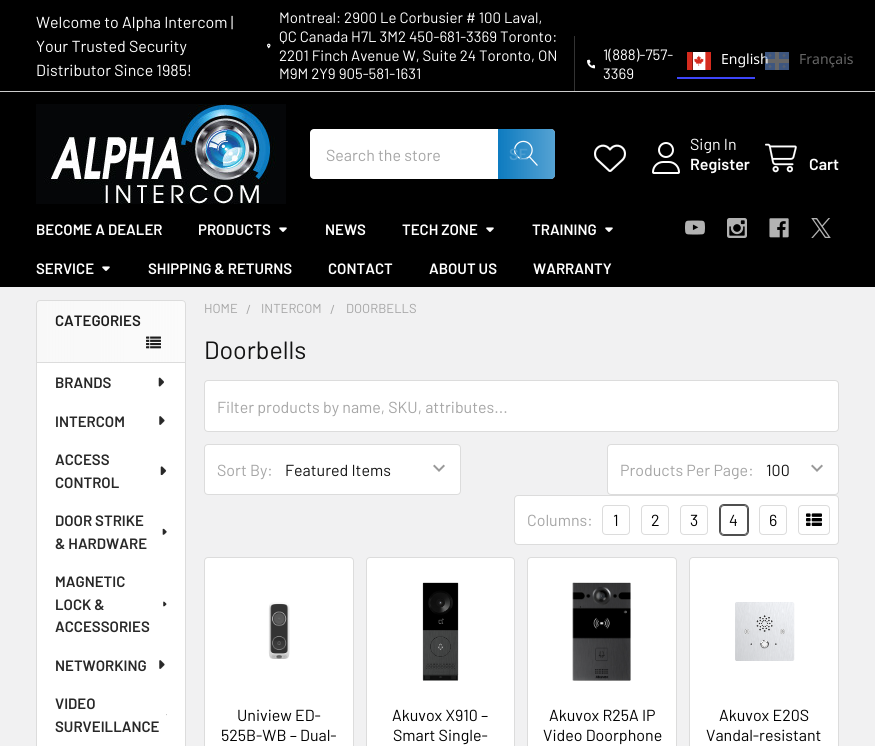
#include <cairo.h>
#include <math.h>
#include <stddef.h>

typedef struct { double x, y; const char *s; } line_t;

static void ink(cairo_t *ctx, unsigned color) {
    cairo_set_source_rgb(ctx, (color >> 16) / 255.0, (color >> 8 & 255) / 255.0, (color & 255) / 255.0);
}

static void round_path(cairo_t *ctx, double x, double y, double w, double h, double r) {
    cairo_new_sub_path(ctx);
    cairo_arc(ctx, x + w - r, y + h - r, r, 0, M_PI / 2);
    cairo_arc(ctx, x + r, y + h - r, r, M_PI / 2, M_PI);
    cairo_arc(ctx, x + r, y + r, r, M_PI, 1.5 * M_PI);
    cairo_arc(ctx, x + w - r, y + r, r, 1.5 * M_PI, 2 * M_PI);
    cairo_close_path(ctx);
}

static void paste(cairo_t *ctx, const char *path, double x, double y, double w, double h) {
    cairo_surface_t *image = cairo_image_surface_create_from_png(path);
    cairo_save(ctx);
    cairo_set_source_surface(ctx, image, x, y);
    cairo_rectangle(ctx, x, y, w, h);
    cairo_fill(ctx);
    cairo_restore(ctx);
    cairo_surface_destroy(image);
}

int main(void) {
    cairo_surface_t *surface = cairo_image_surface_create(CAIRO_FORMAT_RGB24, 875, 746);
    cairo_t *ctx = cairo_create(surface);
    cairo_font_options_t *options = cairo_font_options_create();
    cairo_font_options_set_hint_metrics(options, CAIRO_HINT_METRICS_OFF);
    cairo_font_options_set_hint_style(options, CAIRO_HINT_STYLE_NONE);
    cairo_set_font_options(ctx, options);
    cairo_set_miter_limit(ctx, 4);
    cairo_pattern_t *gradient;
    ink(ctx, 0xF1F1F2);
    cairo_paint(ctx);
    ink(ctx, 0x000000);
    cairo_rectangle(ctx, 0, 0, 875, 287);
    cairo_fill(ctx);
    ink(ctx, 0xCCCCCC);
    cairo_rectangle(ctx, 0, 91, 875, 1);
    cairo_fill(ctx);
    cairo_select_font_face(ctx, "Barlow", CAIRO_FONT_SLANT_NORMAL, CAIRO_FONT_WEIGHT_NORMAL);
    cairo_set_font_size(ctx, 16);
    ink(ctx, 0xFFFFFF);
    {
        static const line_t items[] = {
            {36, 28, "Welcome to Alpha Intercom |"},
            {36, 52, "Your Trusted Security"},
            {36, 76, "Distributor Since 1985!"},
        };
        for (size_t i = 0; i < sizeof items / sizeof *items; i++) {
            cairo_move_to(ctx, items[i].x, items[i].y);
            cairo_show_text(ctx, items[i].s);
        }
    }
    paste(ctx, "media/1.png", 267, 43, 4, 6);
    cairo_set_font_size(ctx, 15);
    {
        static const line_t items[] = {
            {279, 23, "Montreal: 2900 Le Corbusier # 100 Laval,"},
            {279, 42, "QC Canada H7L 3M2 450-681-3369 Toronto:"},
            {279, 61, "2201 Finch Avenue W, Suite 24 Toronto, ON"},
            {279, 79, "M9M 2Y9 905-581-1631"},
        };
        for (size_t i = 0; i < sizeof items / sizeof *items; i++) {
            cairo_move_to(ctx, items[i].x, items[i].y);
            cairo_show_text(ctx, items[i].s);
        }
    }
    ink(ctx, 0x333333);
    cairo_rectangle(ctx, 574, 36, 1, 55);
    cairo_fill(ctx);
    paste(ctx, "media/2.png", 587, 59, 8, 10);
    ink(ctx, 0xFFFFFF);
    cairo_move_to(ctx, 603, 60);
    cairo_show_text(ctx, "1(888)-757-");
    cairo_move_to(ctx, 603, 79);
    cairo_show_text(ctx, "3369");
    paste(ctx, "media/3.png", 687, 52, 24, 18);
    cairo_select_font_face(ctx, "Noto Sans", CAIRO_FONT_SLANT_NORMAL, CAIRO_FONT_WEIGHT_NORMAL);
    cairo_set_font_size(ctx, 14);
    cairo_move_to(ctx, 721, 64);
    cairo_show_text(ctx, "English");
    ink(ctx, 0x3D46FB);
    cairo_rectangle(ctx, 677, 77, 78, 2);
    cairo_fill(ctx);
    paste(ctx, "media/4.png", 765, 52, 24, 18);
    ink(ctx, 0x666666);
    cairo_move_to(ctx, 799, 64);
    cairo_show_text(ctx, "Français");
    paste(ctx, "media/5.png", 36, 104, 250, 100);
    ink(ctx, 0xFFFFFF);
    round_path(ctx, 310, 129, 245, 50, 4);
    cairo_fill(ctx);
    gradient = cairo_pattern_create_linear(498, 154, 555, 154);
    cairo_pattern_add_color_stop_rgba(gradient, 0, 0.051, 0.482, 0.753, 1);
    cairo_pattern_add_color_stop_rgba(gradient, 1, 0.051, 0.482, 0.753, 0.7);
    cairo_set_source(ctx, gradient);
    cairo_pattern_destroy(gradient);
    cairo_new_path(ctx);
    cairo_move_to(ctx, 498, 129);
    cairo_line_to(ctx, 551, 129);
    cairo_curve_to(ctx, 553, 129, 555, 131, 555, 133);
    cairo_line_to(ctx, 555, 175);
    cairo_curve_to(ctx, 555, 177, 553, 179, 551, 179);
    cairo_line_to(ctx, 498, 179);
    cairo_close_path(ctx);
    cairo_fill(ctx);
    paste(ctx, "media/6.png", 514, 140, 24, 26);
    cairo_select_font_face(ctx, "Barlow", CAIRO_FONT_SLANT_NORMAL, CAIRO_FONT_WEIGHT_NORMAL);
    cairo_set_font_size(ctx, 16);
    ink(ctx, 0xA5A5A5);
    cairo_move_to(ctx, 326, 161);
    cairo_show_text(ctx, "Search the store");
    cairo_select_font_face(ctx, "Barlow SemiBold", CAIRO_FONT_SLANT_NORMAL, CAIRO_FONT_WEIGHT_NORMAL);
    ink(ctx, 0x4C9DD0);
    cairo_move_to(ctx, 509, 160);
    cairo_show_text(ctx, "SE");
    paste(ctx, "media/7.png", 594, 144, 32, 28);
    paste(ctx, "media/8.png", 652, 142, 28, 32);
    cairo_select_font_face(ctx, "Barlow", CAIRO_FONT_SLANT_NORMAL, CAIRO_FONT_WEIGHT_NORMAL);
    ink(ctx, 0xFFFFFF);
    cairo_move_to(ctx, 690, 150);
    cairo_show_text(ctx, "Sign In");
    cairo_select_font_face(ctx, "Barlow SemiBold", CAIRO_FONT_SLANT_NORMAL, CAIRO_FONT_WEIGHT_NORMAL);
    cairo_move_to(ctx, 690, 170);
    cairo_show_text(ctx, "Register");
    paste(ctx, "media/9.png", 765, 143, 32, 30);
    cairo_move_to(ctx, 809, 170);
    cairo_show_text(ctx, "Cart");
    cairo_set_font_size(ctx, 15);
    cairo_move_to(ctx, 36, 235);
    cairo_show_text(ctx, "BECOME A DEALER");
    cairo_move_to(ctx, 198, 235);
    cairo_show_text(ctx, "PRODUCTS");
    paste(ctx, "media/10.png", 279, 227, 8, 5);
    cairo_move_to(ctx, 325, 235);
    cairo_show_text(ctx, "NEWS");
    cairo_move_to(ctx, 402, 235);
    cairo_show_text(ctx, "TECH ZONE");
    paste(ctx, "media/10.png", 486, 227, 8, 5);
    cairo_move_to(ctx, 532, 235);
    cairo_show_text(ctx, "TRAINING");
    paste(ctx, "media/10.png", 605, 227, 8, 5);
    cairo_move_to(ctx, 36, 274);
    cairo_show_text(ctx, "SERVICE");
    paste(ctx, "media/10.png", 102, 266, 8, 5);
    {
        static const line_t items[] = {
            {148, 274, "SHIPPING & RETURNS"},
            {328, 274, "CONTACT"},
            {429, 274, "ABOUT US"},
            {533, 274, "WARRANTY"},
        };
        for (size_t i = 0; i < sizeof items / sizeof *items; i++) {
            cairo_move_to(ctx, items[i].x, items[i].y);
            cairo_show_text(ctx, items[i].s);
        }
    }
    paste(ctx, "media/11.png", 685, 220, 20, 15);
    paste(ctx, "media/12.png", 727, 218, 20, 20);
    paste(ctx, "media/13.png", 769, 218, 20, 20);
    paste(ctx, "media/14.png", 811, 218, 20, 20);
    round_path(ctx, 36, 300, 150, 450, 4);
    cairo_fill(ctx);
    gradient = cairo_pattern_create_linear(36, 653, 186, 653);
    cairo_pattern_add_color_stop_rgba(gradient, 0, 0.973, 0.973, 0.973, 1);
    cairo_pattern_add_color_stop_rgba(gradient, 1, 0.973, 0.973, 0.973, 0.6);
    cairo_set_source(ctx, gradient);
    cairo_pattern_destroy(gradient);
    round_path(ctx, 36, 300, 150, 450, 4);
    cairo_fill(ctx);
    cairo_new_path(ctx);
    cairo_move_to(ctx, 40, 300.5);
    cairo_line_to(ctx, 182, 300.5);
    cairo_curve_to(ctx, 184, 300.5, 185.5, 302, 185.5, 304);
    cairo_line_to(ctx, 185.5, 362.5);
    cairo_line_to(ctx, 36.5, 362.5);
    cairo_line_to(ctx, 36.5, 304);
    cairo_curve_to(ctx, 36.5, 302, 38, 300.5, 40, 300.5);
    cairo_close_path(ctx);
    ink(ctx, 0xDCDCDC);
    cairo_set_line_width(ctx, 1);
    cairo_stroke(ctx);
    ink(ctx, 0x1D1D1D);
    cairo_move_to(ctx, 55, 326);
    cairo_show_text(ctx, "CATEGORIES");
    paste(ctx, "media/15.png", 146, 336, 15, 13);
    ink(ctx, 0xFFFFFF);
    cairo_rectangle(ctx, 37, 363, 148, 383);
    cairo_fill(ctx);
    ink(ctx, 0xDCDCDC);
    cairo_set_fill_rule(ctx, CAIRO_FILL_RULE_EVEN_ODD);
    cairo_new_path(ctx);
    cairo_move_to(ctx, 36, 363);
    cairo_line_to(ctx, 186, 363);
    cairo_line_to(ctx, 186, 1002);
    cairo_curve_to(ctx, 186, 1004, 184, 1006, 182, 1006);
    cairo_line_to(ctx, 40, 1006);
    cairo_curve_to(ctx, 38, 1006, 36, 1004, 36, 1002);
    cairo_close_path(ctx);
    cairo_move_to(ctx, 37, 363);
    cairo_line_to(ctx, 185, 363);
    cairo_line_to(ctx, 185, 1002);
    cairo_curve_to(ctx, 185, 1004, 184, 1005, 182, 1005);
    cairo_line_to(ctx, 40, 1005);
    cairo_curve_to(ctx, 38, 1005, 37, 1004, 37, 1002);
    cairo_close_path(ctx);
    cairo_fill(ctx);
    ink(ctx, 0x282828);
    cairo_move_to(ctx, 55, 388);
    cairo_show_text(ctx, "BRANDS");
    paste(ctx, "media/16.png", 158, 377, 6, 10);
    cairo_move_to(ctx, 55, 427);
    cairo_show_text(ctx, "INTERCOM");
    paste(ctx, "media/17.png", 159, 416, 6, 9);
    cairo_move_to(ctx, 55, 465);
    cairo_show_text(ctx, "ACCESS");
    paste(ctx, "media/18.png", 160, 466, 7, 10);
    cairo_move_to(ctx, 55, 488);
    cairo_show_text(ctx, "CONTROL");
    cairo_move_to(ctx, 55, 526);
    cairo_show_text(ctx, "DOOR STRIKE");
    paste(ctx, "media/19.png", 162, 528, 5, 7);
    {
        static const line_t items[] = {
            {55, 549, "& HARDWARE"},
            {55, 587, "MAGNETIC"},
            {55, 610, "LOCK &"},
        };
        for (size_t i = 0; i < sizeof items / sizeof *items; i++) {
            cairo_move_to(ctx, items[i].x, items[i].y);
            cairo_show_text(ctx, items[i].s);
        }
    }
    paste(ctx, "media/20.png", 163, 601, 4, 6);
    cairo_move_to(ctx, 55, 632);
    cairo_show_text(ctx, "ACCESSORIES");
    cairo_move_to(ctx, 55, 671);
    cairo_show_text(ctx, "NETWORKING");
    paste(ctx, "media/17.png", 159, 660, 6, 9);
    cairo_move_to(ctx, 55, 709);
    cairo_show_text(ctx, "VIDEO");
    paste(ctx, "media/21.png", 166, 714, 1, 2);
    cairo_move_to(ctx, 55, 732);
    cairo_show_text(ctx, "SURVEILLANCE");
    cairo_select_font_face(ctx, "Barlow", CAIRO_FONT_SLANT_NORMAL, CAIRO_FONT_WEIGHT_NORMAL);
    cairo_set_font_size(ctx, 13);
    ink(ctx, 0xA5A5A5);
    {
        static const line_t items[] = {
            {204, 313, "HOME"},
            {246, 314, "/"},
            {261, 313, "INTERCOM"},
            {330, 314, "/"},
            {346, 313, "DOORBELLS"},
        };
        for (size_t i = 0; i < sizeof items / sizeof *items; i++) {
            cairo_move_to(ctx, items[i].x, items[i].y);
            cairo_show_text(ctx, items[i].s);
        }
    }
    cairo_set_font_size(ctx, 25);
    ink(ctx, 0x131313);
    cairo_move_to(ctx, 204, 359);
    cairo_show_text(ctx, "Doorbells");
    ink(ctx, 0xFFFFFF);
    round_path(ctx, 204.5, 380.5, 634, 51, 3.5);
    cairo_fill_preserve(ctx);
    ink(ctx, 0xDCDCDC);
    cairo_stroke(ctx);
    cairo_set_font_size(ctx, 16);
    ink(ctx, 0xA5A5A5);
    cairo_move_to(ctx, 217, 413);
    cairo_show_text(ctx, "Filter products by name, SKU, attributes...");
    ink(ctx, 0xFFFFFF);
    round_path(ctx, 204.5, 444.5, 256, 50, 3.5);
    cairo_fill_preserve(ctx);
    ink(ctx, 0xDCDCDC);
    cairo_stroke(ctx);
    ink(ctx, 0xA5A5A5);
    cairo_move_to(ctx, 217, 476);
    cairo_show_text(ctx, "Sort By:");
    paste(ctx, "media/22.png", 433, 464, 12, 8);
    ink(ctx, 0x131313);
    cairo_move_to(ctx, 285, 476);
    cairo_show_text(ctx, "Featured Items");
    ink(ctx, 0xFFFFFF);
    round_path(ctx, 607.5, 444.5, 231, 50, 3.5);
    cairo_fill_preserve(ctx);
    ink(ctx, 0xDCDCDC);
    cairo_stroke(ctx);
    ink(ctx, 0xA5A5A5);
    cairo_move_to(ctx, 620, 476);
    cairo_show_text(ctx, "Products Per Page:");
    paste(ctx, "media/22.png", 811, 464, 12, 8);
    ink(ctx, 0x131313);
    cairo_move_to(ctx, 766, 476);
    cairo_show_text(ctx, "100");
    ink(ctx, 0xFFFFFF);
    round_path(ctx, 514.5, 495.5, 324, 49, 3.5);
    cairo_fill_preserve(ctx);
    ink(ctx, 0xDCDCDC);
    cairo_stroke(ctx);
    ink(ctx, 0xA5A5A5);
    cairo_move_to(ctx, 527, 526);
    cairo_show_text(ctx, "Columns:");
    round_path(ctx, 602.5, 505.5, 27, 29, 3.5);
    ink(ctx, 0xDCDCDC);
    cairo_stroke(ctx);
    ink(ctx, 0x000000);
    cairo_move_to(ctx, 613, 526);
    cairo_show_text(ctx, "1");
    round_path(ctx, 641.5, 505.5, 27, 29, 3.5);
    ink(ctx, 0xDCDCDC);
    cairo_stroke(ctx);
    ink(ctx, 0x000000);
    cairo_move_to(ctx, 651, 526);
    cairo_show_text(ctx, "2");
    round_path(ctx, 680.5, 505.5, 27, 29, 3.5);
    ink(ctx, 0xDCDCDC);
    cairo_stroke(ctx);
    ink(ctx, 0x000000);
    cairo_move_to(ctx, 690, 526);
    cairo_show_text(ctx, "3");
    round_path(ctx, 719.5, 504.5, 29, 31, 4.5);
    ink(ctx, 0x4F4F4F);
    cairo_stroke(ctx);
    round_path(ctx, 720.5, 505.5, 27, 29, 3.5);
    cairo_stroke(ctx);
    ink(ctx, 0x000000);
    cairo_move_to(ctx, 729, 526);
    cairo_show_text(ctx, "4");
    round_path(ctx, 759.5, 505.5, 27, 29, 3.5);
    ink(ctx, 0xDCDCDC);
    cairo_stroke(ctx);
    ink(ctx, 0x000000);
    cairo_move_to(ctx, 769, 526);
    cairo_show_text(ctx, "6");
    round_path(ctx, 798.5, 505.5, 31, 29, 3.5);
    ink(ctx, 0xDCDCDC);
    cairo_stroke(ctx);
    paste(ctx, "media/23.png", 806, 513, 16, 13);
    ink(ctx, 0xFFFFFF);
    round_path(ctx, 204.5, 557.5, 149, 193, 3.5);
    cairo_fill_preserve(ctx);
    ink(ctx, 0xDCDCDC);
    cairo_stroke(ctx);
    paste(ctx, "media/24.png", 268, 602, 22, 57);
    ink(ctx, 0x000000);
    cairo_move_to(ctx, 237, 721);
    cairo_show_text(ctx, "Uniview ED-");
    cairo_move_to(ctx, 221, 741);
    cairo_show_text(ctx, "525B-WB – Dual-");
    ink(ctx, 0xFFFFFF);
    round_path(ctx, 366.5, 557.5, 148, 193, 3.5);
    cairo_fill_preserve(ctx);
    ink(ctx, 0xDCDCDC);
    cairo_stroke(ctx);
    paste(ctx, "media/25.png", 422, 582, 37, 99);
    ink(ctx, 0x000000);
    cairo_move_to(ctx, 392, 721);
    cairo_show_text(ctx, "Akuvox X910 –");
    cairo_move_to(ctx, 393, 741);
    cairo_show_text(ctx, "Smart Single-");
    ink(ctx, 0xFFFFFF);
    round_path(ctx, 527.5, 557.5, 149, 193, 3.5);
    cairo_fill_preserve(ctx);
    ink(ctx, 0xDCDCDC);
    cairo_stroke(ctx);
    paste(ctx, "media/26.png", 572, 582, 59, 99);
    ink(ctx, 0x000000);
    cairo_move_to(ctx, 549, 721);
    cairo_show_text(ctx, "Akuvox R25A IP");
    cairo_move_to(ctx, 543, 741);
    cairo_show_text(ctx, "Video Doorphone");
    ink(ctx, 0xFFFFFF);
    round_path(ctx, 689.5, 557.5, 149, 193, 3.5);
    cairo_fill_preserve(ctx);
    ink(ctx, 0xDCDCDC);
    cairo_stroke(ctx);
    paste(ctx, "media/27.png", 735, 602, 60, 59);
    ink(ctx, 0x000000);
    cairo_move_to(ctx, 719, 721);
    cairo_show_text(ctx, "Akuvox E20S");
    cairo_move_to(ctx, 706, 741);
    cairo_show_text(ctx, "Vandal-resistant");
    cairo_surface_write_to_png(surface, "image.png");
    cairo_font_options_destroy(options);
    cairo_destroy(ctx);
    cairo_surface_destroy(surface);
    return 0;
}
